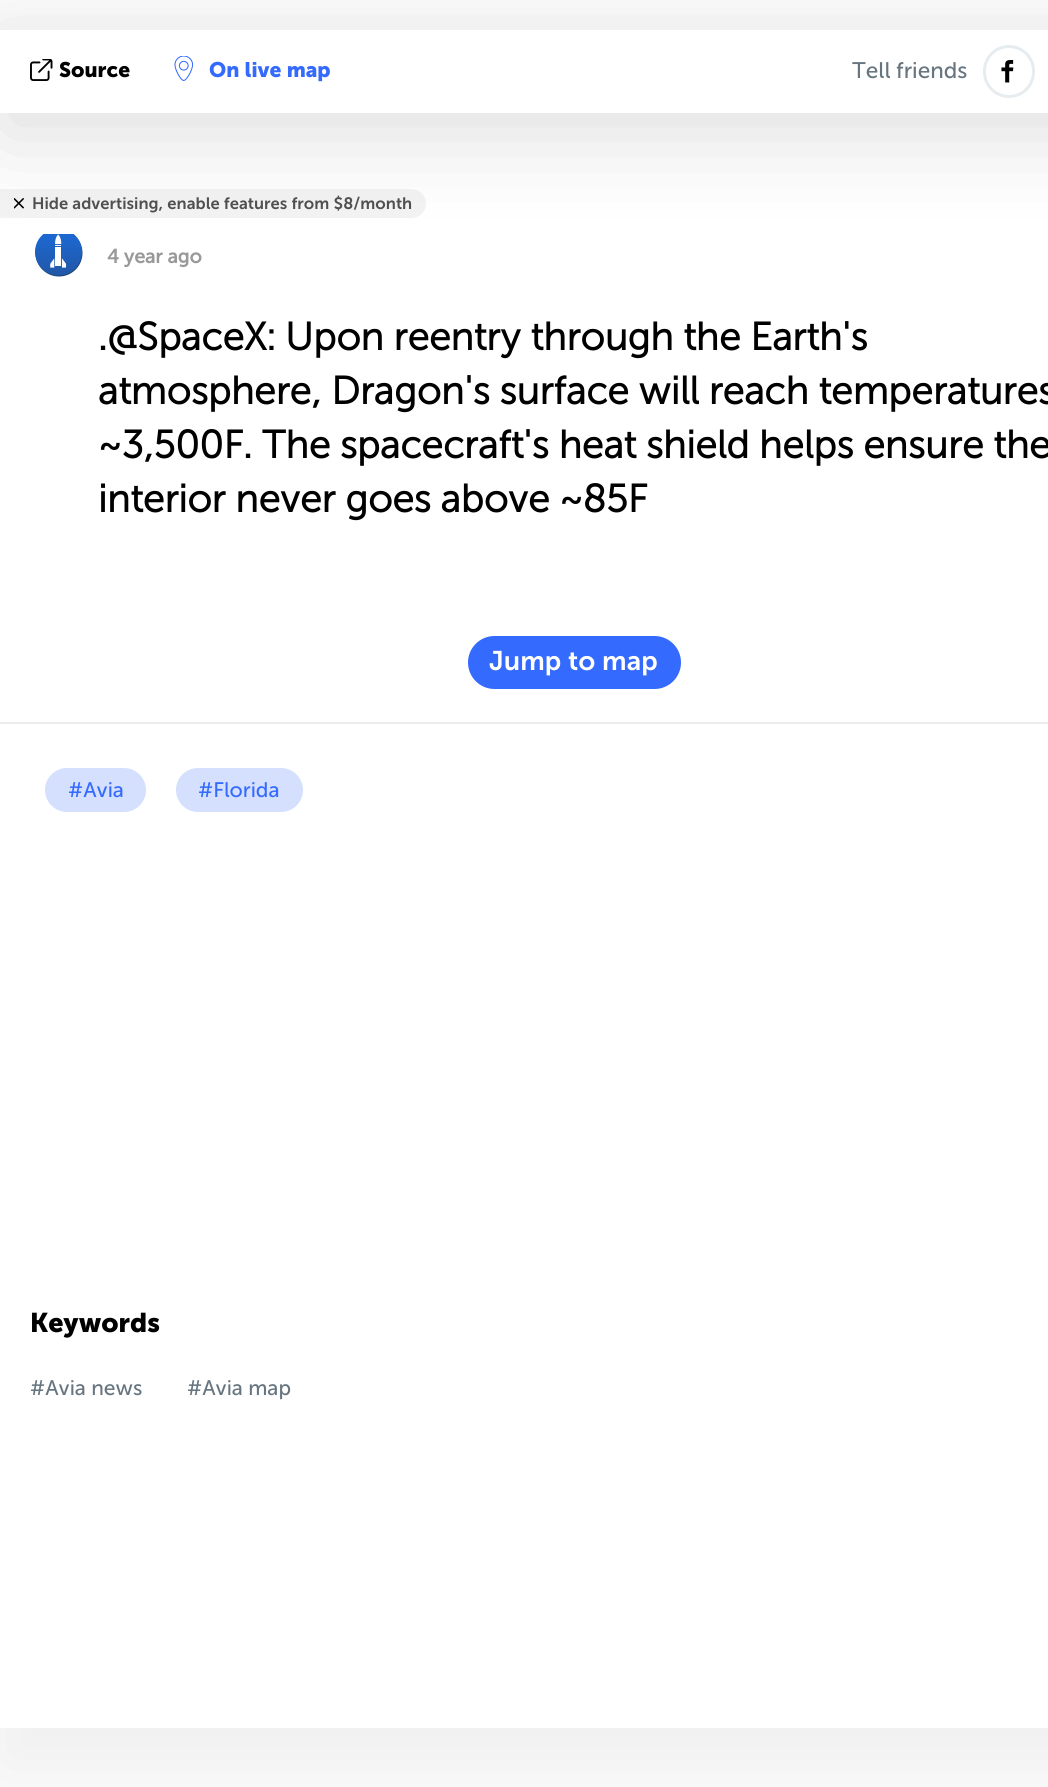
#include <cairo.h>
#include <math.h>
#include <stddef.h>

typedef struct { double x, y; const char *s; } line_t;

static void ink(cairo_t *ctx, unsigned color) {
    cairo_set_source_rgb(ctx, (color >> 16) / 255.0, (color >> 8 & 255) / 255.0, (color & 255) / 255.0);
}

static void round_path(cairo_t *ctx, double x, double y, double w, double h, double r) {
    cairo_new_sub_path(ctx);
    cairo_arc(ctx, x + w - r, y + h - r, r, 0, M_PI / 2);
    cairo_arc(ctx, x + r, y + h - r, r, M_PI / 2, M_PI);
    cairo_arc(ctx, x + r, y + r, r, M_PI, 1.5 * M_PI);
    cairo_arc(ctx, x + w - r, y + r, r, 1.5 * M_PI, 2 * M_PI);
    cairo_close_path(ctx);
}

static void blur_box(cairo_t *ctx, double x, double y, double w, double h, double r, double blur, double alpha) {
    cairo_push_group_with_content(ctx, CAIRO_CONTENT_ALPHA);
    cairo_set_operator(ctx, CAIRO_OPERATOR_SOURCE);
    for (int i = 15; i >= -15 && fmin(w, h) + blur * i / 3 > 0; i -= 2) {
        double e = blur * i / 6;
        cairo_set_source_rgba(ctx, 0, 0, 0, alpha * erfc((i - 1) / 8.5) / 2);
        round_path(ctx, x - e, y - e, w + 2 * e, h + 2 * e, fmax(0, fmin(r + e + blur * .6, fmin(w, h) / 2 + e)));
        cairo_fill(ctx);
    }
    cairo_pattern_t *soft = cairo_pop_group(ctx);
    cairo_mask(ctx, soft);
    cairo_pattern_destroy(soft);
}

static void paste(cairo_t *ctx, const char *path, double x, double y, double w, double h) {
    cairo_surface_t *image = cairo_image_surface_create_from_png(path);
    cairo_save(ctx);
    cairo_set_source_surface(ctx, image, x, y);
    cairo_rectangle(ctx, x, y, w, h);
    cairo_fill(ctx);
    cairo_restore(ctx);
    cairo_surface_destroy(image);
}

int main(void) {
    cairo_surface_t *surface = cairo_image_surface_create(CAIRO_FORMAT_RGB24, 1048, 1787);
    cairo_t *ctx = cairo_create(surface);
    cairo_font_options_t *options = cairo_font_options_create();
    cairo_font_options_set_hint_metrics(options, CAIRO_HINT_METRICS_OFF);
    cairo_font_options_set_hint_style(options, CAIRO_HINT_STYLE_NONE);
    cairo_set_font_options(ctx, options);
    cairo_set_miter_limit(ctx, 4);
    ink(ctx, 0xFBFBFB);
    cairo_paint(ctx);
    ink(ctx, 0x000000);
    blur_box(ctx, 0, 68, 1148, 1698, 0, 37.5, 0.05);
    ink(ctx, 0xFFFFFF);
    cairo_rectangle(ctx, 0, 113, 1048, 1615);
    cairo_fill(ctx);
    ink(ctx, 0xF3F3F3);
    cairo_new_path(ctx);
    cairo_move_to(ctx, 0, 189);
    cairo_line_to(ctx, 411.5, 189);
    cairo_curve_to(ctx, 419.5, 189, 426, 195.5, 426, 203.5);
    cairo_curve_to(ctx, 426, 211.5, 419.5, 218, 411.5, 218);
    cairo_line_to(ctx, 0, 218);
    cairo_close_path(ctx);
    cairo_fill(ctx);
    paste(ctx, "media/4.png", 14, 198, 10, 11);
    paste(ctx, "media/5.png", 35, 234, 48, 43);
    ink(ctx, 0x100F0F);
    blur_box(ctx, 0, 53, 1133, 82, 0, 45, 0.14);
    ink(ctx, 0xFFFFFF);
    cairo_rectangle(ctx, 0, 30, 1048, 83);
    cairo_fill(ctx);
    paste(ctx, "media/1.png", 30, 59, 23, 22);
    cairo_select_font_face(ctx, "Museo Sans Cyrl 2", CAIRO_FONT_SLANT_NORMAL, CAIRO_FONT_WEIGHT_BOLD);
    cairo_set_font_size(ctx, 21);
    ink(ctx, 0x000000);
    cairo_move_to(ctx, 59, 77);
    cairo_show_text(ctx, "Source");
    paste(ctx, "media/2.png", 174, 56, 20, 25);
    ink(ctx, 0x346AFE);
    cairo_move_to(ctx, 209, 77);
    cairo_show_text(ctx, "On live map");
    cairo_select_font_face(ctx, "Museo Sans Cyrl", CAIRO_FONT_SLANT_NORMAL, CAIRO_FONT_WEIGHT_NORMAL);
    cairo_set_font_size(ctx, 22.5);
    ink(ctx, 0x66757F);
    cairo_move_to(ctx, 852, 78);
    cairo_show_text(ctx, "Tell friends");
    paste(ctx, "media/3.png", 1001, 60, 13, 23);
    round_path(ctx, 984.5, 46.5, 49, 50, 24.5);
    ink(ctx, 0xE6ECEF);
    cairo_set_line_width(ctx, 3);
    cairo_stroke(ctx);
    cairo_select_font_face(ctx, "Museo Sans Cyrl SemiBold", CAIRO_FONT_SLANT_NORMAL, CAIRO_FONT_WEIGHT_NORMAL);
    cairo_set_font_size(ctx, 16.5);
    ink(ctx, 0x505050);
    cairo_move_to(ctx, 32, 209);
    cairo_show_text(ctx, "Hide advertising, enable features from $8/month");
    cairo_select_font_face(ctx, "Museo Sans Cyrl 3", CAIRO_FONT_SLANT_NORMAL, CAIRO_FONT_WEIGHT_BOLD);
    cairo_set_font_size(ctx, 19.5);
    ink(ctx, 0x999999);
    cairo_move_to(ctx, 107, 263);
    cairo_show_text(ctx, "4 year ago");
    cairo_select_font_face(ctx, "Museo Sans Cyrl", CAIRO_FONT_SLANT_NORMAL, CAIRO_FONT_WEIGHT_BOLD);
    cairo_set_font_size(ctx, 39);
    ink(ctx, 0x000000);
    {
        static const line_t items[] = {
            {98, 350, ".@SpaceX: Upon reentry through the Earth's"},
            {98, 404, "atmosphere, Dragon's surface will reach temperatures"},
            {98, 458, "~3,500F. The spacecraft's heat shield helps ensure the"},
            {98, 512, "interior never goes above ~85F"},
        };
        for (size_t i = 0; i < sizeof items / sizeof *items; i++) {
            cairo_move_to(ctx, items[i].x, items[i].y);
            cairo_show_text(ctx, items[i].s);
        }
    }
    ink(ctx, 0xECECEC);
    cairo_rectangle(ctx, 0, 722, 1048, 2);
    cairo_fill(ctx);
    ink(ctx, 0x346AFE);
    round_path(ctx, 468, 636, 213, 53, 26.5);
    cairo_fill(ctx);
    cairo_select_font_face(ctx, "Museo Sans Cyrl SemiBold", CAIRO_FONT_SLANT_NORMAL, CAIRO_FONT_WEIGHT_NORMAL);
    cairo_set_font_size(ctx, 27);
    ink(ctx, 0xFFFFFF);
    cairo_move_to(ctx, 489, 670);
    cairo_show_text(ctx, "Jump to map");
    ink(ctx, 0xD5E0FF);
    round_path(ctx, 45, 768, 101, 44, 22);
    cairo_fill(ctx);
    cairo_select_font_face(ctx, "Museo Sans Cyrl", CAIRO_FONT_SLANT_NORMAL, CAIRO_FONT_WEIGHT_NORMAL);
    cairo_set_font_size(ctx, 21);
    ink(ctx, 0x346AFE);
    cairo_move_to(ctx, 68, 797);
    cairo_show_text(ctx, "#Avia");
    ink(ctx, 0xD5E0FF);
    round_path(ctx, 176, 768, 127, 44, 22);
    cairo_fill(ctx);
    ink(ctx, 0x346AFE);
    cairo_move_to(ctx, 198, 797);
    cairo_show_text(ctx, "#Florida");
    cairo_select_font_face(ctx, "Museo Sans Cyrl 2", CAIRO_FONT_SLANT_NORMAL, CAIRO_FONT_WEIGHT_BOLD);
    cairo_set_font_size(ctx, 27);
    ink(ctx, 0x000000);
    cairo_move_to(ctx, 30, 1332);
    cairo_show_text(ctx, "Keywords");
    cairo_select_font_face(ctx, "Museo Sans Cyrl", CAIRO_FONT_SLANT_NORMAL, CAIRO_FONT_WEIGHT_NORMAL);
    cairo_set_font_size(ctx, 21);
    ink(ctx, 0x66757F);
    cairo_move_to(ctx, 30, 1395);
    cairo_show_text(ctx, "#Avia news");
    cairo_move_to(ctx, 187, 1395);
    cairo_show_text(ctx, "#Avia map");
    cairo_surface_write_to_png(surface, "image.png");
    cairo_font_options_destroy(options);
    cairo_destroy(ctx);
    cairo_surface_destroy(surface);
    return 0;
}
